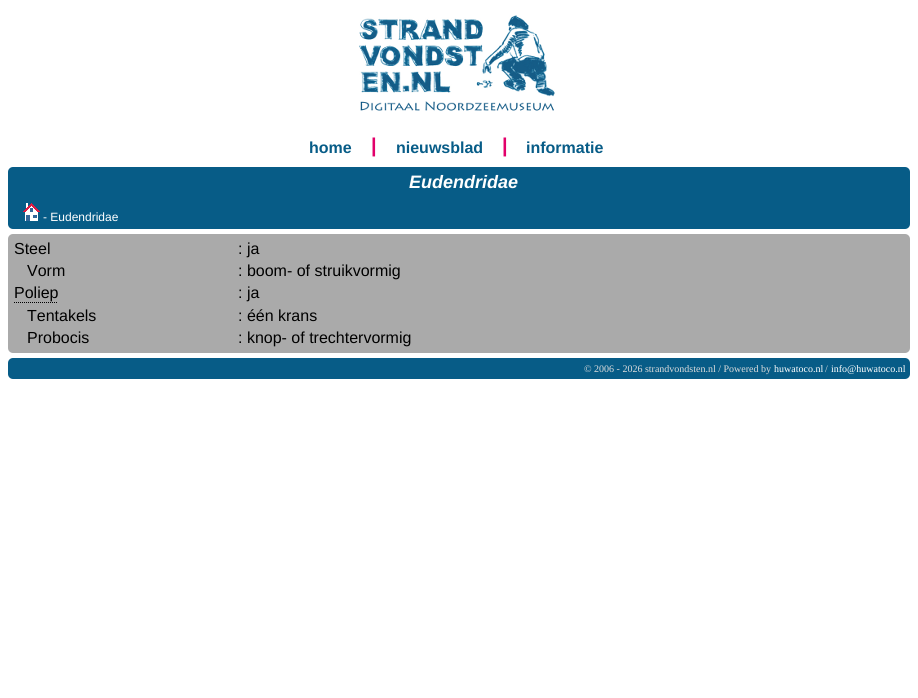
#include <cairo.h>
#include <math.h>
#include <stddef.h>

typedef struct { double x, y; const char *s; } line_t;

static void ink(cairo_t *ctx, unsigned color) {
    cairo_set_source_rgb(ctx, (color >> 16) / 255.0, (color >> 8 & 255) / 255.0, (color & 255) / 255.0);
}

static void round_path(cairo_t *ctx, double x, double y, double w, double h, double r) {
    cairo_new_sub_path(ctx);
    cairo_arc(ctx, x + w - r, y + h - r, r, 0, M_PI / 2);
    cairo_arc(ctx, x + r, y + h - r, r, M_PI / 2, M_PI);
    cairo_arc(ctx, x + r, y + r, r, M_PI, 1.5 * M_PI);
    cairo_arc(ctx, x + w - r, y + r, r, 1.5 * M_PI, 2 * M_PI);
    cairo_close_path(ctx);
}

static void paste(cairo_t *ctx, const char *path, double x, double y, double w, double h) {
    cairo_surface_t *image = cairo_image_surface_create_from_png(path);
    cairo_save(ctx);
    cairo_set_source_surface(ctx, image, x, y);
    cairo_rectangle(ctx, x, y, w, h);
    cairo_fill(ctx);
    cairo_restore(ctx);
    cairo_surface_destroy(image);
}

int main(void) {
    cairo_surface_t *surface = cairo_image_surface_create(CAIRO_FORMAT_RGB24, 918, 698);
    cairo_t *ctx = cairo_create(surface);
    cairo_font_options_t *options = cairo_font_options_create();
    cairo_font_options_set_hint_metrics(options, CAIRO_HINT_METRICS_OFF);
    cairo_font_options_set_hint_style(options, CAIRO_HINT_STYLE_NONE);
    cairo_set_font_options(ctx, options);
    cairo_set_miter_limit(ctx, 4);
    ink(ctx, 0xFFFFFF);
    cairo_paint(ctx);
    paste(ctx, "media/1.png", 359, 15, 196, 96);
    cairo_select_font_face(ctx, "Liberation Sans", CAIRO_FONT_SLANT_NORMAL, CAIRO_FONT_WEIGHT_BOLD);
    cairo_set_font_size(ctx, 16);
    ink(ctx, 0x075C87);
    cairo_move_to(ctx, 309, 153);
    cairo_show_text(ctx, "home");
    cairo_set_font_size(ctx, 20);
    ink(ctx, 0xE2006A);
    cairo_move_to(ctx, 371, 152);
    cairo_show_text(ctx, "|");
    cairo_set_font_size(ctx, 16);
    ink(ctx, 0x075C87);
    cairo_move_to(ctx, 396, 153);
    cairo_show_text(ctx, "nieuwsblad");
    cairo_set_font_size(ctx, 20);
    ink(ctx, 0xE2006A);
    cairo_move_to(ctx, 502, 152);
    cairo_show_text(ctx, "|");
    cairo_set_font_size(ctx, 16);
    ink(ctx, 0x075C87);
    cairo_move_to(ctx, 526, 153);
    cairo_show_text(ctx, "informatie");
    round_path(ctx, 8, 167, 902, 62, 5);
    cairo_fill(ctx);
    cairo_select_font_face(ctx, "Liberation Sans", CAIRO_FONT_SLANT_ITALIC, CAIRO_FONT_WEIGHT_BOLD);
    cairo_set_font_size(ctx, 18);
    ink(ctx, 0xFFFFFF);
    cairo_move_to(ctx, 409, 188);
    cairo_show_text(ctx, "Eudendridae");
    paste(ctx, "media/2.png", 23, 203, 17, 18);
    cairo_select_font_face(ctx, "Liberation Sans", CAIRO_FONT_SLANT_NORMAL, CAIRO_FONT_WEIGHT_NORMAL);
    cairo_set_font_size(ctx, 12);
    cairo_move_to(ctx, 43, 221);
    cairo_show_text(ctx, "- Eudendridae");
    ink(ctx, 0xAAAAAA);
    round_path(ctx, 8, 234, 902, 119, 5);
    cairo_fill(ctx);
    cairo_set_font_size(ctx, 16);
    ink(ctx, 0x000000);
    {
        static const line_t items[] = {
            {14, 254, "Steel"},
            {238, 254, ": ja"},
            {27, 276, "Vorm"},
            {238, 276, ": boom- of struikvormig"},
        };
        for (size_t i = 0; i < sizeof items / sizeof *items; i++) {
            cairo_move_to(ctx, items[i].x, items[i].y);
            cairo_show_text(ctx, items[i].s);
        }
    }
    cairo_new_path(ctx);
    cairo_move_to(ctx, 14, 302.5);
    cairo_line_to(ctx, 58, 302.5);
    cairo_set_line_width(ctx, 1);
    cairo_set_dash(ctx, (double[]){1, 1}, 2, 0);
    cairo_stroke(ctx);
    {
        static const line_t items[] = {
            {14, 298, "Poliep"},
            {238, 298, ": ja"},
            {27, 321, "Tentakels"},
            {238, 321, ": één krans"},
            {27, 343, "Probocis"},
            {238, 343, ": knop- of trechtervormig"},
        };
        for (size_t i = 0; i < sizeof items / sizeof *items; i++) {
            cairo_move_to(ctx, items[i].x, items[i].y);
            cairo_show_text(ctx, items[i].s);
        }
    }
    ink(ctx, 0x075C87);
    round_path(ctx, 8, 358, 902, 21, 5);
    cairo_fill(ctx);
    cairo_select_font_face(ctx, "Liberation Serif", CAIRO_FONT_SLANT_NORMAL, CAIRO_FONT_WEIGHT_NORMAL);
    cairo_set_font_size(ctx, 10);
    ink(ctx, 0xDCDCDC);
    cairo_move_to(ctx, 584, 372);
    cairo_show_text(ctx, "© 2006 - 2026 strandvondsten.nl / Powered by");
    ink(ctx, 0xFFFFFF);
    cairo_move_to(ctx, 774, 372);
    cairo_show_text(ctx, "huwatoco.nl");
    ink(ctx, 0xDCDCDC);
    cairo_move_to(ctx, 825, 372);
    cairo_show_text(ctx, "/");
    ink(ctx, 0xFFFFFF);
    cairo_move_to(ctx, 831, 372);
    cairo_show_text(ctx, "info@huwatoco.nl");
    cairo_surface_write_to_png(surface, "image.png");
    cairo_font_options_destroy(options);
    cairo_destroy(ctx);
    cairo_surface_destroy(surface);
    return 0;
}
